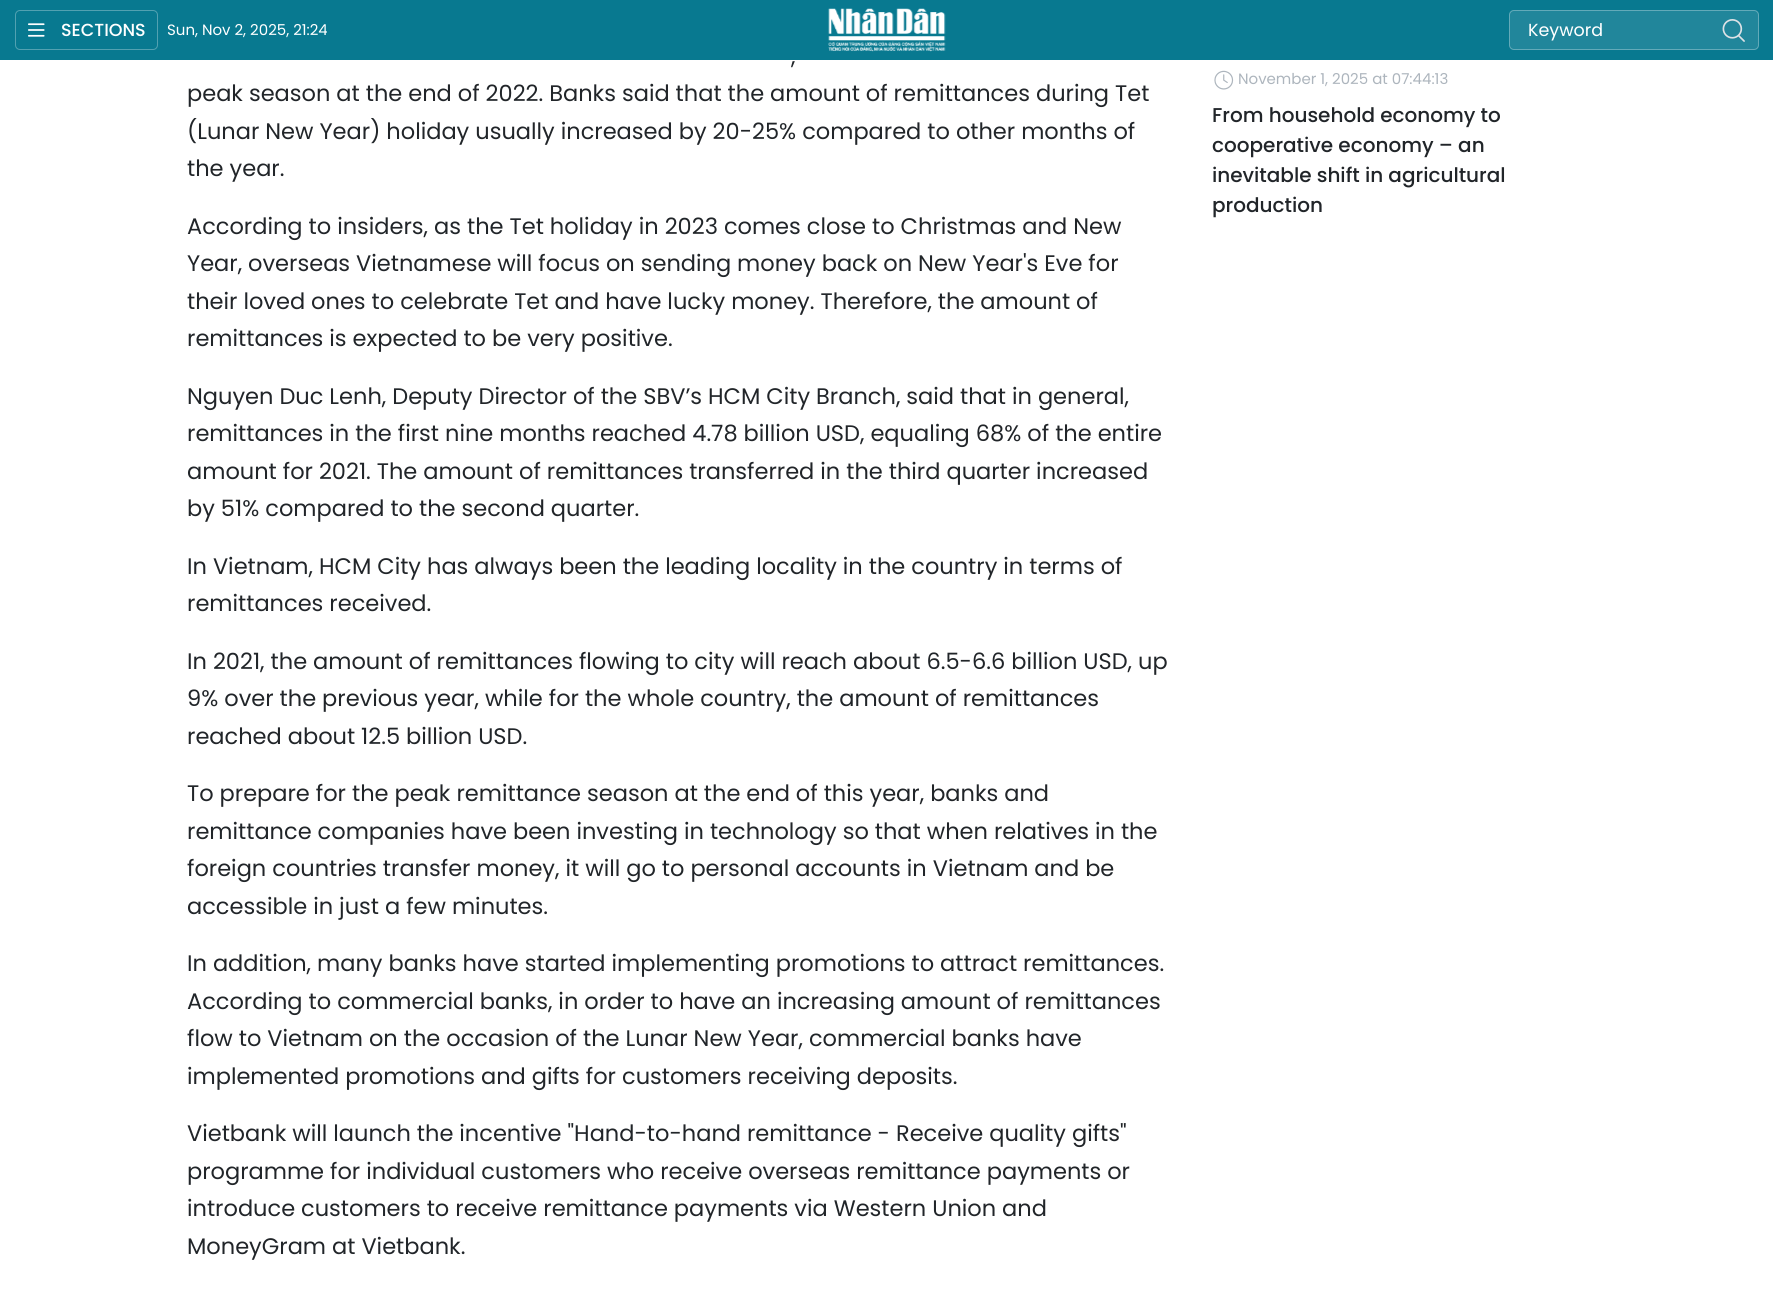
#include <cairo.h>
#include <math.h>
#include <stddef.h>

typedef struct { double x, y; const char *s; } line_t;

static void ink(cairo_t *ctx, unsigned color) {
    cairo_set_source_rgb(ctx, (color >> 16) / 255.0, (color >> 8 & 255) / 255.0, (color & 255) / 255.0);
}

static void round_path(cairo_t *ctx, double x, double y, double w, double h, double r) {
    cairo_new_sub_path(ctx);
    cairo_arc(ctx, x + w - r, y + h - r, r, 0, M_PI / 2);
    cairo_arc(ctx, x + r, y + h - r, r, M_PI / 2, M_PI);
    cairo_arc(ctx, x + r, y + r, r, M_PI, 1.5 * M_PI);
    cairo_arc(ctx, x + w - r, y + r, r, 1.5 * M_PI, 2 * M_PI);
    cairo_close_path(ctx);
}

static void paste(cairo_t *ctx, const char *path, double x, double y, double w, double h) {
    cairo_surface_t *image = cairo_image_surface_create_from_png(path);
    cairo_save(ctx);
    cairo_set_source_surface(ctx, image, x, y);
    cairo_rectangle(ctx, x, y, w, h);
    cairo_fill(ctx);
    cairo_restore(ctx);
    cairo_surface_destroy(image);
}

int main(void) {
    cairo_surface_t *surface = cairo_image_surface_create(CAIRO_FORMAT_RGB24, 1773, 1301);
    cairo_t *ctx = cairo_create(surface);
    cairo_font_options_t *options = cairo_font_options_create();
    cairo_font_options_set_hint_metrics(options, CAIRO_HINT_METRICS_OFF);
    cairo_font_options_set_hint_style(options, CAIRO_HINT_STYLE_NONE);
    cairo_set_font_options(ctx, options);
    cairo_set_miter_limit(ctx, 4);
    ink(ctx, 0xFFFFFF);
    cairo_paint(ctx);
    ink(ctx, 0x087990);
    cairo_rectangle(ctx, 0, 0, 1773, 60);
    cairo_fill(ctx);
    round_path(ctx, 15.5, 10.5, 142, 39, 4.5);
    ink(ctx, 0x52A1B1);
    cairo_set_line_width(ctx, 1);
    cairo_stroke(ctx);
    paste(ctx, "media/1.png", 28, 23, 17, 14);
    cairo_select_font_face(ctx, "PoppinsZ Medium", CAIRO_FONT_SLANT_NORMAL, CAIRO_FONT_WEIGHT_NORMAL);
    cairo_set_font_size(ctx, 17.5);
    ink(ctx, 0xFFFFFF);
    cairo_move_to(ctx, 61, 36);
    cairo_show_text(ctx, "SECTIONS");
    cairo_select_font_face(ctx, "PoppinsZ", CAIRO_FONT_SLANT_NORMAL, CAIRO_FONT_WEIGHT_NORMAL);
    cairo_set_font_size(ctx, 15);
    cairo_move_to(ctx, 167, 35);
    cairo_show_text(ctx, "Sun, Nov 2, 2025, 21:24");
    paste(ctx, "media/2.png", 828, 8, 118, 44);
    ink(ctx, 0x21869B);
    round_path(ctx, 1509, 10, 250, 40, 5);
    cairo_fill(ctx);
    round_path(ctx, 1509.5, 10.5, 249, 39, 4.5);
    cairo_set_source_rgba(ctx, 1, 1, 1, 0.3);
    cairo_stroke(ctx);
    cairo_set_font_size(ctx, 17.5);
    ink(ctx, 0xFFFFFF);
    cairo_move_to(ctx, 1528, 36);
    cairo_show_text(ctx, "Keyword");
    paste(ctx, "media/3.png", 1722, 19, 23, 23);
    cairo_set_font_size(ctx, 22.5);
    ink(ctx, 0x212529);
    {
        static const line_t items[] = {
            {791, 64, ","},
            {187, 101, "peak season at the end of 2022. Banks said that the amount of remittances during Tet"},
            {187, 139, "(Lunar New Year) holiday usually increased by 20-25% compared to other months of"},
            {187, 176, "the year."},
            {187, 234, "According to insiders, as the Tet holiday in 2023 comes close to Christmas and New"},
            {187, 271, "Year, overseas Vietnamese will focus on sending money back on New Year's Eve for"},
            {187, 309, "their loved ones to celebrate Tet and have lucky money. Therefore, the amount of"},
            {187, 346, "remittances is expected to be very positive."},
            {187, 404, "Nguyen Duc Lenh, Deputy Director of the SBV’s HCM City Branch, said that in general,"},
            {187, 441, "remittances in the first nine months reached 4.78 billion USD, equaling 68% of the entire"},
            {187, 479, "amount for 2021. The amount of remittances transferred in the third quarter increased"},
            {187, 516, "by 51% compared to the second quarter."},
            {187, 574, "In Vietnam, HCM City has always been the leading locality in the country in terms of"},
            {187, 611, "remittances received."},
            {187, 669, "In 2021, the amount of remittances flowing to city will reach about 6.5-6.6 billion USD, up"},
            {187, 706, "9% over the previous year, while for the whole country, the amount of remittances"},
            {187, 744, "reached about 12.5 billion USD."},
            {187, 801, "To prepare for the peak remittance season at the end of this year, banks and"},
            {187, 839, "remittance companies have been investing in technology so that when relatives in the"},
            {187, 876, "foreign countries transfer money, it will go to personal accounts in Vietnam and be"},
            {187, 914, "accessible in just a few minutes."},
            {187, 971, "In addition, many banks have started implementing promotions to attract remittances."},
            {187, 1009, "According to commercial banks, in order to have an increasing amount of remittances"},
            {187, 1046, "flow to Vietnam on the occasion of the Lunar New Year, commercial banks have"},
            {187, 1084, "implemented promotions and gifts for customers receiving deposits."},
            {187, 1141, "Vietbank will launch the incentive \"Hand-to-hand remittance - Receive quality gifts\""},
            {187, 1179, "programme for individual customers who receive overseas remittance payments or"},
            {187, 1216, "introduce customers to receive remittance payments via Western Union and"},
            {187, 1254, "MoneyGram at Vietbank."},
        };
        for (size_t i = 0; i < sizeof items / sizeof *items; i++) {
            cairo_move_to(ctx, items[i].x, items[i].y);
            cairo_show_text(ctx, items[i].s);
        }
    }
    paste(ctx, "media/4.png", 1214, 70, 20, 20);
    cairo_set_font_size(ctx, 15);
    ink(ctx, 0xADB5BD);
    cairo_move_to(ctx, 1238, 84);
    cairo_show_text(ctx, "November 1, 2025 at 07:44:13");
    cairo_select_font_face(ctx, "PoppinsZ Medium", CAIRO_FONT_SLANT_NORMAL, CAIRO_FONT_WEIGHT_NORMAL);
    cairo_set_font_size(ctx, 20);
    ink(ctx, 0x212529);
    {
        static const line_t items[] = {
            {1212, 122, "From household economy to"},
            {1212, 152, "cooperative economy – an"},
            {1212, 182, "inevitable shift in agricultural"},
            {1212, 212, "production"},
        };
        for (size_t i = 0; i < sizeof items / sizeof *items; i++) {
            cairo_move_to(ctx, items[i].x, items[i].y);
            cairo_show_text(ctx, items[i].s);
        }
    }
    cairo_surface_write_to_png(surface, "image.png");
    cairo_font_options_destroy(options);
    cairo_destroy(ctx);
    cairo_surface_destroy(surface);
    return 0;
}
